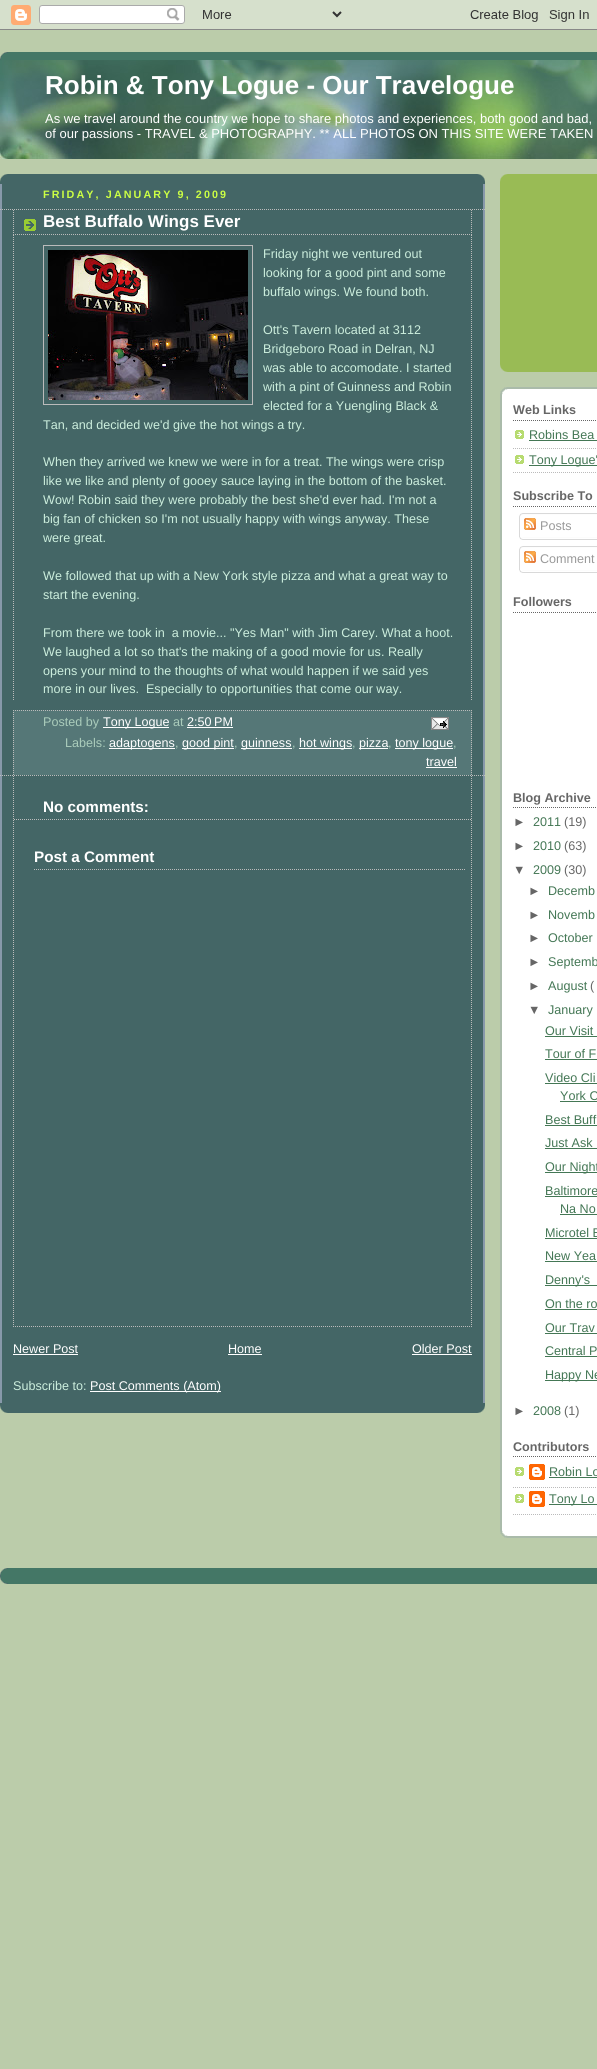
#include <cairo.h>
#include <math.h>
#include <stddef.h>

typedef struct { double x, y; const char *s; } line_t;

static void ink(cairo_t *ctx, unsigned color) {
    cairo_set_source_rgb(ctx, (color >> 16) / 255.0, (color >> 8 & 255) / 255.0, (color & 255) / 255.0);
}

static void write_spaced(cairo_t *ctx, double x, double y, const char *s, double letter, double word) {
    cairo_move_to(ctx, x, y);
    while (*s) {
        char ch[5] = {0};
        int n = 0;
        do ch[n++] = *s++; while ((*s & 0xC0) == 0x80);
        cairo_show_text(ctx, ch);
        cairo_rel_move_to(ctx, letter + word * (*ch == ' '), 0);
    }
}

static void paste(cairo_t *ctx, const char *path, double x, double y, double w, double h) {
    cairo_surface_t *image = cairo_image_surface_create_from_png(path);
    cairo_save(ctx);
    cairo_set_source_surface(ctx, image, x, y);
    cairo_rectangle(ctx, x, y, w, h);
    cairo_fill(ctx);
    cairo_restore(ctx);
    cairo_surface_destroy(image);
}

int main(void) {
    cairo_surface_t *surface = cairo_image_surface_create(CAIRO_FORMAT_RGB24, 597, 2069);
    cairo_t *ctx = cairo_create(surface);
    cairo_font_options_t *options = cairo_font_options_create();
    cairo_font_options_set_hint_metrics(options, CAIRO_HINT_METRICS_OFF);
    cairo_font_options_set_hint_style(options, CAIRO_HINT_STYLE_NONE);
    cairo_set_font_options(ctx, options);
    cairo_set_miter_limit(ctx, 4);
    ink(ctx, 0xBBCCAA);
    cairo_paint(ctx);
    paste(ctx, "media/1.png", 0, 0, 597, 30);
    ink(ctx, 0x447766);
    cairo_rectangle(ctx, 1, 52, 596, 8);
    cairo_fill(ctx);
    paste(ctx, "media/2.png", 0, 52, 8, 8);
    paste(ctx, "media/3.png", 0, 60, 597, 99);
    cairo_select_font_face(ctx, "Liberation Sans", CAIRO_FONT_SLANT_NORMAL, CAIRO_FONT_WEIGHT_BOLD);
    cairo_set_font_size(ctx, 26);
    ink(ctx, 0xFFFFFF);
    cairo_move_to(ctx, 45, 94);
    cairo_show_text(ctx, "Robin & Tony Logue - Our Travelogue");
    cairo_select_font_face(ctx, "Liberation Sans", CAIRO_FONT_SLANT_NORMAL, CAIRO_FONT_WEIGHT_NORMAL);
    cairo_set_font_size(ctx, 13);
    cairo_move_to(ctx, 45, 123);
    cairo_show_text(ctx, "As we travel around the country we hope to share photos and experiences, both good and bad,");
    cairo_move_to(ctx, 45, 138);
    cairo_show_text(ctx, "of our passions - TRAVEL & PHOTOGRAPHY. ** ALL PHOTOS ON THIS SITE WERE TAKEN");
    ink(ctx, 0x446666);
    cairo_rectangle(ctx, 0, 174, 485, 1239);
    cairo_fill(ctx);
    paste(ctx, "media/4.png", 0, 1405, 485, 8);
    paste(ctx, "media/5.png", 0, 174, 485, 8);
    paste(ctx, "media/6.png", 0, 184, 485, 1219);
    cairo_select_font_face(ctx, "Liberation Sans", CAIRO_FONT_SLANT_NORMAL, CAIRO_FONT_WEIGHT_BOLD);
    cairo_set_font_size(ctx, 10.75);
    ink(ctx, 0xCCFF44);
    write_spaced(ctx, 43, 198, "FRIDAY, JANUARY 9, 2009", 2.1, 0);
    cairo_new_path(ctx);
    cairo_move_to(ctx, 0, 209.5);
    cairo_line_to(ctx, 485, 209.5);
    ink(ctx, 0xBBBBBB);
    cairo_set_line_width(ctx, 1);
    cairo_set_dash(ctx, (double[]){1, 1}, 2, 0);
    cairo_stroke(ctx);
    cairo_new_path(ctx);
    cairo_move_to(ctx, 0, 775.5);
    cairo_line_to(ctx, 485, 775.5);
    cairo_stroke(ctx);
    paste(ctx, "media/7.png", 24, 219, 12, 12);
    cairo_new_path(ctx);
    cairo_move_to(ctx, 471.5, 210);
    cairo_line_to(ctx, 471.5, 235);
    cairo_stroke(ctx);
    cairo_new_path(ctx);
    cairo_move_to(ctx, 13, 234.5);
    cairo_line_to(ctx, 472, 234.5);
    cairo_stroke(ctx);
    cairo_new_path(ctx);
    cairo_move_to(ctx, 13.5, 210);
    cairo_line_to(ctx, 13.5, 235);
    cairo_stroke(ctx);
    cairo_set_font_size(ctx, 17);
    ink(ctx, 0xFFFFFF);
    cairo_move_to(ctx, 43, 227);
    cairo_show_text(ctx, "Best Buffalo Wings Ever");
    cairo_new_path(ctx);
    cairo_move_to(ctx, 471.5, 235);
    cairo_line_to(ctx, 471.5, 700);
    ink(ctx, 0xBBBBBB);
    cairo_stroke(ctx);
    cairo_new_path(ctx);
    cairo_move_to(ctx, 13.5, 235);
    cairo_line_to(ctx, 13.5, 700);
    cairo_stroke(ctx);
    cairo_rectangle(ctx, 43.5, 245.5, 209, 159);
    cairo_set_dash(ctx, NULL, 0, 0);
    cairo_stroke(ctx);
    paste(ctx, "media/8.png", 48, 250, 200, 150);
    cairo_select_font_face(ctx, "Liberation Sans", CAIRO_FONT_SLANT_NORMAL, CAIRO_FONT_WEIGHT_NORMAL);
    cairo_set_font_size(ctx, 12.6);
    ink(ctx, 0xCCEEDD);
    {
        static const line_t items[] = {
            {263, 258, "Friday night we ventured out"},
            {263, 277, "looking for a good pint and some"},
            {263, 296, "buffalo wings. We found both."},
            {263, 334, "Ott's Tavern located at 3112"},
            {263, 353, "Bridgeboro Road in Delran, NJ"},
            {263, 372, "was able to accomodate. I started"},
            {263, 391, "with a pint of Guinness and Robin"},
            {263, 410, "elected for a Yuengling Black &"},
            {43, 429, "Tan, and decided we'd give the hot wings a try."},
            {43, 466, "When they arrived we knew we were in for a treat. The wings were crisp"},
            {43, 485, "like we like and plenty of gooey sauce laying in the bottom of the basket."},
            {43, 504, "Wow! Robin said they were probably the best she'd ever had. I'm not a"},
            {43, 523, "big fan of chicken so I'm not usually happy with wings anyway. These"},
            {43, 542, "were great."},
            {43, 580, "We followed that up with a New York style pizza and what a great way to"},
            {43, 599, "start the evening."},
            {43, 637, "From there we took in  a movie... \"Yes Man\" with Jim Carey. What a hoot."},
            {43, 656, "We laughed a lot so that's the making of a good movie for us. Really"},
            {43, 675, "opens your mind to the thoughts of what would happen if we said yes"},
            {43, 693, "more in our lives.  Especially to opportunities that come our way."},
        };
        for (size_t i = 0; i < sizeof items / sizeof *items; i++) {
            cairo_move_to(ctx, items[i].x, items[i].y);
            cairo_show_text(ctx, items[i].s);
        }
    }
    ink(ctx, 0x557777);
    cairo_rectangle(ctx, 13, 710, 459, 65);
    cairo_fill(ctx);
    cairo_new_path(ctx);
    cairo_move_to(ctx, 13, 710.5);
    cairo_line_to(ctx, 472, 710.5);
    ink(ctx, 0xBBBBBB);
    cairo_set_dash(ctx, (double[]){1, 1}, 2, 0);
    cairo_stroke(ctx);
    cairo_new_path(ctx);
    cairo_move_to(ctx, 471.5, 710);
    cairo_line_to(ctx, 471.5, 775);
    cairo_stroke(ctx);
    cairo_new_path(ctx);
    cairo_move_to(ctx, 13.5, 710);
    cairo_line_to(ctx, 13.5, 775);
    cairo_stroke(ctx);
    ink(ctx, 0xAACCBB);
    cairo_move_to(ctx, 43, 726);
    cairo_show_text(ctx, "Posted by");
    ink(ctx, 0xFFFFFF);
    cairo_rectangle(ctx, 103, 727, 66, 1);
    cairo_fill(ctx);
    cairo_move_to(ctx, 103, 726);
    cairo_show_text(ctx, "Tony Logue");
    ink(ctx, 0xAACCBB);
    cairo_move_to(ctx, 173, 726);
    cairo_show_text(ctx, "at");
    ink(ctx, 0xFFFFFF);
    cairo_move_to(ctx, 187, 726);
    cairo_show_text(ctx, "2:50 PM");
    cairo_rectangle(ctx, 187, 727, 46, 1);
    cairo_fill(ctx);
    paste(ctx, "media/9.png", 431, 717, 18, 13);
    ink(ctx, 0xAACCBB);
    cairo_move_to(ctx, 65, 747);
    cairo_show_text(ctx, "Labels:");
    ink(ctx, 0xFFFFFF);
    cairo_rectangle(ctx, 109, 748, 66, 1);
    cairo_fill(ctx);
    cairo_move_to(ctx, 109, 747);
    cairo_show_text(ctx, "adaptogens");
    ink(ctx, 0xAACCBB);
    cairo_move_to(ctx, 175, 747);
    cairo_show_text(ctx, ",");
    ink(ctx, 0xFFFFFF);
    cairo_rectangle(ctx, 182, 748, 52, 1);
    cairo_fill(ctx);
    cairo_move_to(ctx, 182, 747);
    cairo_show_text(ctx, "good pint");
    ink(ctx, 0xAACCBB);
    cairo_move_to(ctx, 234, 747);
    cairo_show_text(ctx, ",");
    ink(ctx, 0xFFFFFF);
    cairo_rectangle(ctx, 241, 748, 51, 1);
    cairo_fill(ctx);
    cairo_move_to(ctx, 241, 747);
    cairo_show_text(ctx, "guinness");
    ink(ctx, 0xAACCBB);
    cairo_move_to(ctx, 292, 747);
    cairo_show_text(ctx, ",");
    ink(ctx, 0xFFFFFF);
    cairo_rectangle(ctx, 299, 748, 53, 1);
    cairo_fill(ctx);
    cairo_move_to(ctx, 299, 747);
    cairo_show_text(ctx, "hot wings");
    ink(ctx, 0xAACCBB);
    cairo_move_to(ctx, 352, 747);
    cairo_show_text(ctx, ",");
    ink(ctx, 0xFFFFFF);
    cairo_rectangle(ctx, 359, 748, 29, 1);
    cairo_fill(ctx);
    cairo_move_to(ctx, 359, 747);
    cairo_show_text(ctx, "pizza");
    ink(ctx, 0xAACCBB);
    cairo_move_to(ctx, 388, 747);
    cairo_show_text(ctx, ",");
    ink(ctx, 0xFFFFFF);
    cairo_rectangle(ctx, 395, 748, 58, 1);
    cairo_fill(ctx);
    cairo_move_to(ctx, 395, 747);
    cairo_show_text(ctx, "tony logue");
    ink(ctx, 0xAACCBB);
    cairo_move_to(ctx, 453, 747);
    cairo_show_text(ctx, ",");
    ink(ctx, 0xFFFFFF);
    cairo_move_to(ctx, 426, 766);
    cairo_show_text(ctx, "travel");
    cairo_rectangle(ctx, 426, 767, 31, 1);
    cairo_fill(ctx);
    cairo_new_path(ctx);
    cairo_move_to(ctx, 471.5, 776);
    cairo_line_to(ctx, 471.5, 1327);
    ink(ctx, 0xBBBBBB);
    cairo_stroke(ctx);
    cairo_new_path(ctx);
    cairo_move_to(ctx, 13, 1326.5);
    cairo_line_to(ctx, 472, 1326.5);
    cairo_stroke(ctx);
    cairo_new_path(ctx);
    cairo_move_to(ctx, 13.5, 776);
    cairo_line_to(ctx, 13.5, 1327);
    cairo_stroke(ctx);
    cairo_new_path(ctx);
    cairo_move_to(ctx, 14, 819.5);
    cairo_line_to(ctx, 471, 819.5);
    cairo_stroke(ctx);
    cairo_select_font_face(ctx, "Liberation Sans", CAIRO_FONT_SLANT_NORMAL, CAIRO_FONT_WEIGHT_BOLD);
    cairo_set_font_size(ctx, 15.25);
    ink(ctx, 0xFFFFFF);
    cairo_move_to(ctx, 43, 812);
    cairo_show_text(ctx, "No comments:");
    cairo_new_path(ctx);
    cairo_move_to(ctx, 34, 869.5);
    cairo_line_to(ctx, 466, 869.5);
    ink(ctx, 0xBBBBBB);
    cairo_stroke(ctx);
    ink(ctx, 0xFFFFFF);
    cairo_move_to(ctx, 34, 862);
    cairo_show_text(ctx, "Post a Comment");
    cairo_select_font_face(ctx, "Liberation Sans", CAIRO_FONT_SLANT_NORMAL, CAIRO_FONT_WEIGHT_NORMAL);
    cairo_set_font_size(ctx, 12.6);
    cairo_move_to(ctx, 13, 1353);
    cairo_show_text(ctx, "Newer Post");
    cairo_rectangle(ctx, 13, 1354, 65, 1);
    cairo_fill(ctx);
    cairo_move_to(ctx, 228, 1353);
    cairo_show_text(ctx, "Home");
    cairo_rectangle(ctx, 228, 1354, 34, 1);
    cairo_fill(ctx);
    cairo_move_to(ctx, 412, 1353);
    cairo_show_text(ctx, "Older Post");
    cairo_rectangle(ctx, 412, 1354, 60, 1);
    cairo_fill(ctx);
    ink(ctx, 0xCCEEDD);
    cairo_move_to(ctx, 13, 1390);
    cairo_show_text(ctx, "Subscribe to:");
    ink(ctx, 0xFFFFFF);
    cairo_rectangle(ctx, 90, 1391, 131, 1);
    cairo_fill(ctx);
    cairo_move_to(ctx, 90, 1390);
    cairo_show_text(ctx, "Post Comments (Atom)");
    ink(ctx, 0x99BB55);
    cairo_rectangle(ctx, 500, 174, 97, 198);
    cairo_fill(ctx);
    paste(ctx, "media/10.png", 500, 364, 8, 8);
    paste(ctx, "media/11.png", 500, 174, 8, 8);
    ink(ctx, 0xFFFFFF);
    cairo_rectangle(ctx, 502, 389, 95, 1147);
    cairo_fill(ctx);
    paste(ctx, "media/12.png", 500, 387, 97, 30);
    paste(ctx, "media/13.png", 500, 1508, 97, 30);
    ink(ctx, 0xAABBAA);
    cairo_rectangle(ctx, 500, 417, 2, 1091);
    cairo_fill(ctx);
    cairo_new_path(ctx);
    cairo_move_to(ctx, 513, 420.5);
    cairo_line_to(ctx, 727, 420.5);
    ink(ctx, 0x666666);
    cairo_stroke(ctx);
    cairo_select_font_face(ctx, "Liberation Sans", CAIRO_FONT_SLANT_NORMAL, CAIRO_FONT_WEIGHT_BOLD);
    cairo_move_to(ctx, 513, 414);
    cairo_show_text(ctx, "Web Links");
    paste(ctx, "media/14.png", 515, 430, 9, 9);
    cairo_new_path(ctx);
    cairo_move_to(ctx, 513, 448.5);
    cairo_line_to(ctx, 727, 448.5);
    ink(ctx, 0xBBBBBB);
    cairo_stroke(ctx);
    cairo_select_font_face(ctx, "Liberation Sans", CAIRO_FONT_SLANT_NORMAL, CAIRO_FONT_WEIGHT_NORMAL);
    ink(ctx, 0x447755);
    cairo_move_to(ctx, 529, 439);
    cairo_show_text(ctx, "Robins Bea");
    cairo_rectangle(ctx, 529, 440, 68, 1);
    cairo_fill(ctx);
    paste(ctx, "media/14.png", 515, 455, 9, 9);
    cairo_new_path(ctx);
    cairo_move_to(ctx, 513, 472.5);
    cairo_line_to(ctx, 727, 472.5);
    ink(ctx, 0xBBBBBB);
    cairo_stroke(ctx);
    ink(ctx, 0x447755);
    cairo_rectangle(ctx, 529, 465, 68, 1);
    cairo_fill(ctx);
    cairo_move_to(ctx, 529, 464);
    cairo_show_text(ctx, "Tony Logue'");
    cairo_new_path(ctx);
    cairo_move_to(ctx, 513, 506.5);
    cairo_line_to(ctx, 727, 506.5);
    ink(ctx, 0x666666);
    cairo_stroke(ctx);
    cairo_select_font_face(ctx, "Liberation Sans", CAIRO_FONT_SLANT_NORMAL, CAIRO_FONT_WEIGHT_BOLD);
    cairo_move_to(ctx, 513, 500);
    cairo_show_text(ctx, "Subscribe To");
    paste(ctx, "media/15.png", 519, 513, 78, 24);
    paste(ctx, "media/16.png", 524, 518, 12, 12);
    cairo_select_font_face(ctx, "Liberation Sans", CAIRO_FONT_SLANT_NORMAL, CAIRO_FONT_WEIGHT_NORMAL);
    ink(ctx, 0x999999);
    cairo_move_to(ctx, 540, 530);
    cairo_show_text(ctx, "Posts");
    paste(ctx, "media/17.png", 519, 537, 78, 3);
    paste(ctx, "media/15.png", 519, 546, 78, 24);
    paste(ctx, "media/16.png", 524, 551, 12, 12);
    cairo_move_to(ctx, 540, 563);
    cairo_show_text(ctx, "Comment");
    paste(ctx, "media/17.png", 519, 570, 78, 3);
    cairo_new_path(ctx);
    cairo_move_to(ctx, 513, 612.5);
    cairo_line_to(ctx, 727, 612.5);
    ink(ctx, 0x666666);
    cairo_stroke(ctx);
    cairo_select_font_face(ctx, "Liberation Sans", CAIRO_FONT_SLANT_NORMAL, CAIRO_FONT_WEIGHT_BOLD);
    cairo_move_to(ctx, 513, 606);
    cairo_show_text(ctx, "Followers");
    cairo_new_path(ctx);
    cairo_move_to(ctx, 513, 807.5);
    cairo_line_to(ctx, 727, 807.5);
    cairo_stroke(ctx);
    cairo_move_to(ctx, 513, 802);
    cairo_show_text(ctx, "Blog Archive");
    cairo_select_font_face(ctx, "Liberation Sans", CAIRO_FONT_SLANT_NORMAL, CAIRO_FONT_WEIGHT_NORMAL);
    cairo_move_to(ctx, 513, 826);
    cairo_show_text(ctx, "►");
    ink(ctx, 0x447755);
    cairo_move_to(ctx, 533, 826);
    cairo_show_text(ctx, "2011");
    ink(ctx, 0x666666);
    cairo_move_to(ctx, 564, 826);
    cairo_show_text(ctx, "(19)");
    cairo_move_to(ctx, 513, 850);
    cairo_show_text(ctx, "►");
    ink(ctx, 0x447755);
    cairo_move_to(ctx, 533, 850);
    cairo_show_text(ctx, "2010");
    ink(ctx, 0x666666);
    cairo_move_to(ctx, 564, 850);
    cairo_show_text(ctx, "(63)");
    cairo_move_to(ctx, 513, 874);
    cairo_show_text(ctx, "▼");
    ink(ctx, 0x447755);
    cairo_move_to(ctx, 533, 874);
    cairo_show_text(ctx, "2009");
    ink(ctx, 0x666666);
    cairo_move_to(ctx, 564, 874);
    cairo_show_text(ctx, "(30)");
    cairo_move_to(ctx, 528, 895);
    cairo_show_text(ctx, "►");
    ink(ctx, 0x447755);
    cairo_move_to(ctx, 548, 895);
    cairo_show_text(ctx, "Decemb");
    ink(ctx, 0x666666);
    cairo_move_to(ctx, 528, 919);
    cairo_show_text(ctx, "►");
    ink(ctx, 0x447755);
    cairo_move_to(ctx, 548, 919);
    cairo_show_text(ctx, "Novemb");
    ink(ctx, 0x666666);
    cairo_move_to(ctx, 528, 942);
    cairo_show_text(ctx, "►");
    ink(ctx, 0x447755);
    cairo_move_to(ctx, 548, 942);
    cairo_show_text(ctx, "October");
    ink(ctx, 0x666666);
    cairo_move_to(ctx, 528, 966);
    cairo_show_text(ctx, "►");
    ink(ctx, 0x447755);
    cairo_move_to(ctx, 548, 966);
    cairo_show_text(ctx, "Septemb");
    ink(ctx, 0x666666);
    cairo_move_to(ctx, 528, 990);
    cairo_show_text(ctx, "►");
    ink(ctx, 0x447755);
    cairo_move_to(ctx, 548, 990);
    cairo_show_text(ctx, "August");
    ink(ctx, 0x666666);
    cairo_move_to(ctx, 590, 990);
    cairo_show_text(ctx, "(");
    cairo_move_to(ctx, 528, 1014);
    cairo_show_text(ctx, "▼");
    ink(ctx, 0x447755);
    cairo_move_to(ctx, 548, 1014);
    cairo_show_text(ctx, "January");
    cairo_move_to(ctx, 545, 1035);
    cairo_show_text(ctx, "Our Visit");
    cairo_rectangle(ctx, 545, 1036, 52, 1);
    cairo_fill(ctx);
    cairo_move_to(ctx, 545, 1058);
    cairo_show_text(ctx, "Tour of F");
    cairo_rectangle(ctx, 545, 1059, 52, 1);
    cairo_fill(ctx);
    cairo_move_to(ctx, 545, 1082);
    cairo_show_text(ctx, "Video Cli");
    cairo_rectangle(ctx, 545, 1083, 52, 1);
    cairo_fill(ctx);
    cairo_move_to(ctx, 560, 1100);
    cairo_show_text(ctx, "York C");
    cairo_rectangle(ctx, 560, 1101, 37, 1);
    cairo_fill(ctx);
    cairo_move_to(ctx, 545, 1124);
    cairo_show_text(ctx, "Best Buff");
    cairo_rectangle(ctx, 545, 1125, 52, 1);
    cairo_fill(ctx);
    cairo_move_to(ctx, 545, 1147);
    cairo_show_text(ctx, "Just Ask");
    cairo_rectangle(ctx, 545, 1148, 52, 1);
    cairo_fill(ctx);
    cairo_rectangle(ctx, 545, 1172, 52, 1);
    cairo_fill(ctx);
    cairo_move_to(ctx, 545, 1171);
    cairo_show_text(ctx, "Our Night");
    cairo_move_to(ctx, 545, 1195);
    cairo_show_text(ctx, "Baltimore");
    cairo_rectangle(ctx, 545, 1196, 52, 1);
    cairo_fill(ctx);
    cairo_move_to(ctx, 560, 1213);
    cairo_show_text(ctx, "Na No");
    cairo_rectangle(ctx, 560, 1214, 37, 1);
    cairo_fill(ctx);
    cairo_move_to(ctx, 545, 1237);
    cairo_show_text(ctx, "Microtel B");
    cairo_rectangle(ctx, 545, 1238, 52, 1);
    cairo_fill(ctx);
    cairo_move_to(ctx, 545, 1260);
    cairo_show_text(ctx, "New Yea");
    cairo_rectangle(ctx, 545, 1261, 52, 1);
    cairo_fill(ctx);
    cairo_rectangle(ctx, 545, 1285, 52, 1);
    cairo_fill(ctx);
    cairo_move_to(ctx, 545, 1284);
    cairo_show_text(ctx, "Denny's");
    cairo_move_to(ctx, 545, 1308);
    cairo_show_text(ctx, "On the ro");
    cairo_rectangle(ctx, 545, 1309, 52, 1);
    cairo_fill(ctx);
    cairo_move_to(ctx, 545, 1332);
    cairo_show_text(ctx, "Our Trav");
    cairo_rectangle(ctx, 545, 1333, 52, 1);
    cairo_fill(ctx);
    cairo_move_to(ctx, 545, 1355);
    cairo_show_text(ctx, "Central P");
    cairo_rectangle(ctx, 545, 1356, 52, 1);
    cairo_fill(ctx);
    cairo_rectangle(ctx, 545, 1380, 52, 1);
    cairo_fill(ctx);
    cairo_move_to(ctx, 545, 1379);
    cairo_show_text(ctx, "Happy Ne");
    ink(ctx, 0x666666);
    cairo_move_to(ctx, 513, 1415);
    cairo_show_text(ctx, "►");
    ink(ctx, 0x447755);
    cairo_move_to(ctx, 533, 1415);
    cairo_show_text(ctx, "2008");
    ink(ctx, 0x666666);
    cairo_move_to(ctx, 564, 1415);
    cairo_show_text(ctx, "(1)");
    cairo_new_path(ctx);
    cairo_move_to(ctx, 513, 1456.5);
    cairo_line_to(ctx, 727, 1456.5);
    cairo_stroke(ctx);
    cairo_select_font_face(ctx, "Liberation Sans", CAIRO_FONT_SLANT_NORMAL, CAIRO_FONT_WEIGHT_BOLD);
    cairo_move_to(ctx, 513, 1451);
    cairo_show_text(ctx, "Contributors");
    paste(ctx, "media/14.png", 515, 1467, 9, 9);
    cairo_new_path(ctx);
    cairo_move_to(ctx, 513, 1487.5);
    cairo_line_to(ctx, 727, 1487.5);
    ink(ctx, 0xBBBBBB);
    cairo_stroke(ctx);
    paste(ctx, "media/18.png", 529, 1464, 16, 16);
    cairo_select_font_face(ctx, "Liberation Sans", CAIRO_FONT_SLANT_NORMAL, CAIRO_FONT_WEIGHT_NORMAL);
    ink(ctx, 0x447755);
    cairo_move_to(ctx, 549, 1476);
    cairo_show_text(ctx, "Robin Lo");
    cairo_rectangle(ctx, 549, 1477, 48, 1);
    cairo_fill(ctx);
    paste(ctx, "media/14.png", 515, 1494, 9, 9);
    cairo_new_path(ctx);
    cairo_move_to(ctx, 513, 1514.5);
    cairo_line_to(ctx, 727, 1514.5);
    ink(ctx, 0xBBBBBB);
    cairo_stroke(ctx);
    paste(ctx, "media/18.png", 529, 1491, 16, 16);
    ink(ctx, 0x447755);
    cairo_rectangle(ctx, 549, 1504, 48, 1);
    cairo_fill(ctx);
    cairo_move_to(ctx, 549, 1503);
    cairo_show_text(ctx, "Tony Lo");
    ink(ctx, 0x447766);
    cairo_rectangle(ctx, 1, 1568, 596, 16);
    cairo_fill(ctx);
    paste(ctx, "media/2.png", 0, 1568, 8, 8);
    paste(ctx, "media/19.png", 0, 1576, 8, 8);
    cairo_surface_write_to_png(surface, "image.png");
    cairo_font_options_destroy(options);
    cairo_destroy(ctx);
    cairo_surface_destroy(surface);
    return 0;
}
